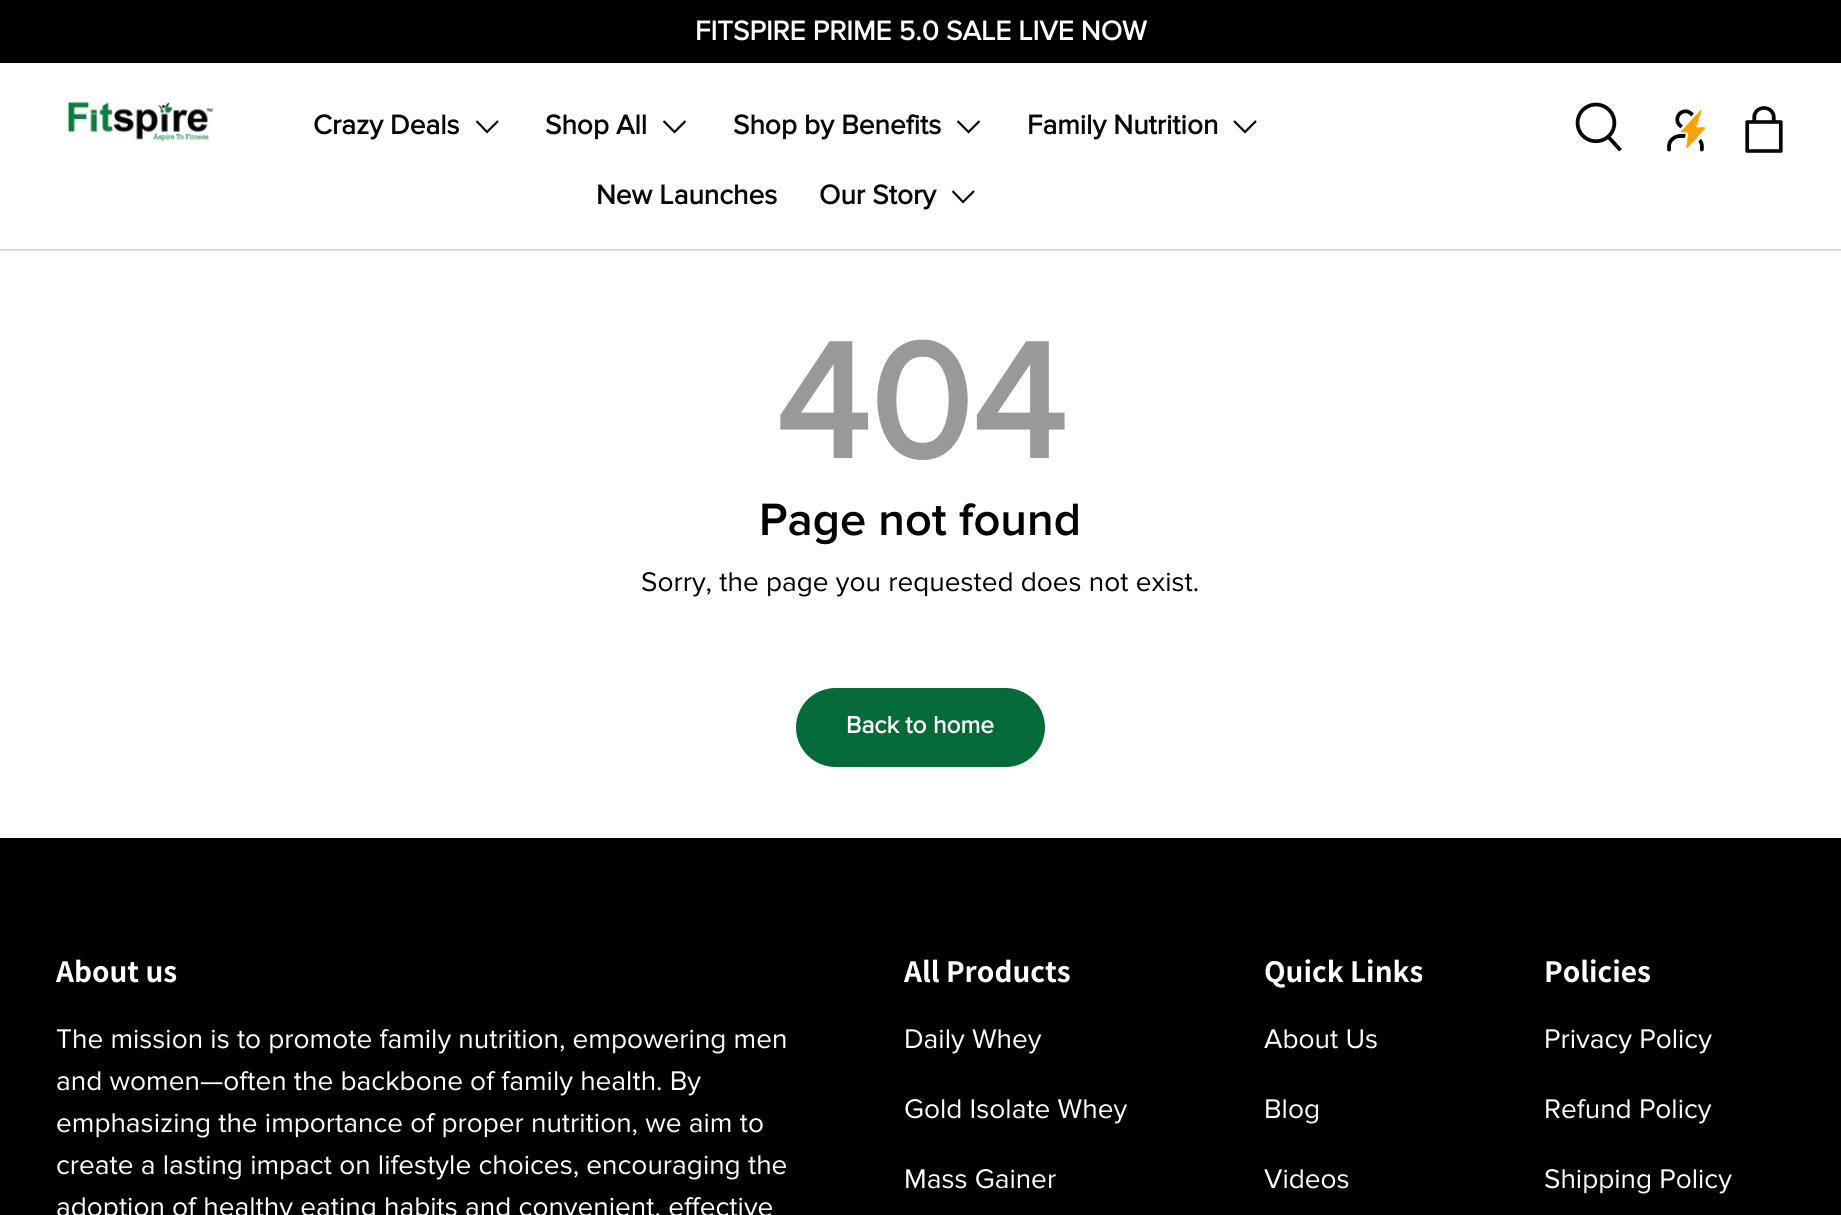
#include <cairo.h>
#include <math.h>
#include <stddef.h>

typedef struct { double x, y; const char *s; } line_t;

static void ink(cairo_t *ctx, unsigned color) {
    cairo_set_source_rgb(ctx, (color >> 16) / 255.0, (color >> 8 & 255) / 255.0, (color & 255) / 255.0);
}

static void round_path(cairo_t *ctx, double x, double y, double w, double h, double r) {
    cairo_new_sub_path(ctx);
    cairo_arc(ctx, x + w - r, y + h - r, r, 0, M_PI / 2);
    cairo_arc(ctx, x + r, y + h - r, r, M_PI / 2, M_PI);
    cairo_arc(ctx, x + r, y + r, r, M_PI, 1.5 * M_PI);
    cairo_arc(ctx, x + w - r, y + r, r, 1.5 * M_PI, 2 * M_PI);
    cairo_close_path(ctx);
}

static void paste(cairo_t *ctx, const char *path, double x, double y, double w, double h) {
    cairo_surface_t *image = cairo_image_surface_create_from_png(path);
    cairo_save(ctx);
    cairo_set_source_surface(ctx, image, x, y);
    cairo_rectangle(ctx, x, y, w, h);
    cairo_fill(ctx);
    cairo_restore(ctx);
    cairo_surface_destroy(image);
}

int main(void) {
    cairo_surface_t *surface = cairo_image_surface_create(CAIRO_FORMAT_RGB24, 1841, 1215);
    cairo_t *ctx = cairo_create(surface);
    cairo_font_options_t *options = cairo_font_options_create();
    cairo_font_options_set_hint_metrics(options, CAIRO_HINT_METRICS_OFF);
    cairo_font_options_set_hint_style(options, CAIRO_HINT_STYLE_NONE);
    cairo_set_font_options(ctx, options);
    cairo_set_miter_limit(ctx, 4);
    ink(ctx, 0xFFFFFF);
    cairo_paint(ctx);
    ink(ctx, 0x000000);
    cairo_rectangle(ctx, 0, 0, 1841, 63);
    cairo_fill(ctx);
    cairo_select_font_face(ctx, "Proxima Nova", CAIRO_FONT_SLANT_NORMAL, CAIRO_FONT_WEIGHT_BOLD);
    cairo_set_font_size(ctx, 28);
    ink(ctx, 0xFFFFFF);
    cairo_move_to(ctx, 695, 40);
    cairo_show_text(ctx, "FITSPIRE PRIME 5.0 SALE LIVE NOW");
    ink(ctx, 0xDADADA);
    cairo_rectangle(ctx, 0, 249, 1841, 2);
    cairo_fill(ctx);
    paste(ctx, "media/1.png", 65, 100, 150, 43);
    ink(ctx, 0x070707);
    cairo_move_to(ctx, 313, 134);
    cairo_show_text(ctx, "Crazy Deals");
    cairo_new_path(ctx);
    cairo_move_to(ctx, 498, 121);
    cairo_line_to(ctx, 487, 132);
    cairo_line_to(ctx, 476.5, 121);
    cairo_set_line_width(ctx, 2.2);
    cairo_stroke(ctx);
    cairo_move_to(ctx, 545, 134);
    cairo_show_text(ctx, "Shop All");
    cairo_new_path(ctx);
    cairo_move_to(ctx, 685.5, 121);
    cairo_line_to(ctx, 674.5, 132);
    cairo_line_to(ctx, 663.5, 121);
    cairo_stroke(ctx);
    cairo_move_to(ctx, 733, 134);
    cairo_show_text(ctx, "Shop by Benefits");
    cairo_new_path(ctx);
    cairo_move_to(ctx, 979.5, 121);
    cairo_line_to(ctx, 968.5, 132);
    cairo_line_to(ctx, 957.5, 121);
    cairo_stroke(ctx);
    cairo_move_to(ctx, 1027, 134);
    cairo_show_text(ctx, "Family Nutrition");
    cairo_new_path(ctx);
    cairo_move_to(ctx, 1256, 121);
    cairo_line_to(ctx, 1245, 132);
    cairo_line_to(ctx, 1234, 121);
    cairo_stroke(ctx);
    cairo_move_to(ctx, 596, 204);
    cairo_show_text(ctx, "New Launches");
    cairo_move_to(ctx, 819, 204);
    cairo_show_text(ctx, "Our Story");
    cairo_new_path(ctx);
    cairo_move_to(ctx, 974, 191);
    cairo_line_to(ctx, 963, 202);
    cairo_line_to(ctx, 952.5, 191);
    cairo_stroke(ctx);
    paste(ctx, "media/2.png", 1575, 102, 47, 50);
    paste(ctx, "media/3.png", 1667, 109, 39, 43);
    paste(ctx, "media/4.png", 1745, 106, 38, 47);
    cairo_set_font_size(ctx, 168);
    ink(ctx, 0x999999);
    cairo_move_to(ctx, 775, 458);
    cairo_show_text(ctx, "404");
    cairo_select_font_face(ctx, "Proxima Nova SemiBold", CAIRO_FONT_SLANT_NORMAL, CAIRO_FONT_WEIGHT_NORMAL);
    cairo_set_font_size(ctx, 47);
    ink(ctx, 0x000000);
    cairo_move_to(ctx, 759, 535);
    cairo_show_text(ctx, "Page not found");
    cairo_select_font_face(ctx, "Proxima Nova", CAIRO_FONT_SLANT_NORMAL, CAIRO_FONT_WEIGHT_NORMAL);
    cairo_set_font_size(ctx, 28);
    cairo_move_to(ctx, 641, 591);
    cairo_show_text(ctx, "Sorry, the page you requested does not exist.");
    ink(ctx, 0x046A38);
    round_path(ctx, 798, 690, 245, 75, 37.5);
    cairo_fill_preserve(ctx);
    cairo_set_line_width(ctx, 4);
    cairo_stroke(ctx);
    cairo_select_font_face(ctx, "Proxima Nova", CAIRO_FONT_SLANT_NORMAL, CAIRO_FONT_WEIGHT_BOLD);
    cairo_set_font_size(ctx, 24.5);
    ink(ctx, 0xFFFFFF);
    cairo_move_to(ctx, 846, 733);
    cairo_show_text(ctx, "Back to home");
    ink(ctx, 0x000000);
    cairo_rectangle(ctx, 0, 838, 1841, 377);
    cairo_fill(ctx);
    cairo_select_font_face(ctx, "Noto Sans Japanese", CAIRO_FONT_SLANT_NORMAL, CAIRO_FONT_WEIGHT_BOLD);
    cairo_set_font_size(ctx, 28);
    ink(ctx, 0xFFFFFF);
    cairo_move_to(ctx, 56, 982);
    cairo_show_text(ctx, "About us");
    cairo_select_font_face(ctx, "Proxima Nova", CAIRO_FONT_SLANT_NORMAL, CAIRO_FONT_WEIGHT_NORMAL);
    {
        static const line_t items[] = {
            {56, 1048, "The mission is to promote family nutrition, empowering men"},
            {56, 1090, "and women—often the backbone of family health. By"},
            {56, 1132, "emphasizing the importance of proper nutrition, we aim to"},
            {56, 1174, "create a lasting impact on lifestyle choices, encouraging the"},
            {56, 1216, "adoption of healthy eating habits and convenient, effective"},
        };
        for (size_t i = 0; i < sizeof items / sizeof *items; i++) {
            cairo_move_to(ctx, items[i].x, items[i].y);
            cairo_show_text(ctx, items[i].s);
        }
    }
    cairo_select_font_face(ctx, "Noto Sans Japanese", CAIRO_FONT_SLANT_NORMAL, CAIRO_FONT_WEIGHT_BOLD);
    cairo_move_to(ctx, 904, 982);
    cairo_show_text(ctx, "All Products");
    cairo_select_font_face(ctx, "Proxima Nova", CAIRO_FONT_SLANT_NORMAL, CAIRO_FONT_WEIGHT_NORMAL);
    {
        static const line_t items[] = {
            {904, 1048, "Daily Whey"},
            {904, 1118, "Gold Isolate Whey"},
            {904, 1188, "Mass Gainer"},
        };
        for (size_t i = 0; i < sizeof items / sizeof *items; i++) {
            cairo_move_to(ctx, items[i].x, items[i].y);
            cairo_show_text(ctx, items[i].s);
        }
    }
    cairo_select_font_face(ctx, "Noto Sans Japanese", CAIRO_FONT_SLANT_NORMAL, CAIRO_FONT_WEIGHT_BOLD);
    cairo_move_to(ctx, 1264, 982);
    cairo_show_text(ctx, "Quick Links");
    cairo_select_font_face(ctx, "Proxima Nova", CAIRO_FONT_SLANT_NORMAL, CAIRO_FONT_WEIGHT_NORMAL);
    {
        static const line_t items[] = {
            {1264, 1048, "About Us"},
            {1264, 1118, "Blog"},
            {1264, 1188, "Videos"},
        };
        for (size_t i = 0; i < sizeof items / sizeof *items; i++) {
            cairo_move_to(ctx, items[i].x, items[i].y);
            cairo_show_text(ctx, items[i].s);
        }
    }
    cairo_select_font_face(ctx, "Noto Sans Japanese", CAIRO_FONT_SLANT_NORMAL, CAIRO_FONT_WEIGHT_BOLD);
    cairo_move_to(ctx, 1544, 982);
    cairo_show_text(ctx, "Policies");
    cairo_select_font_face(ctx, "Proxima Nova", CAIRO_FONT_SLANT_NORMAL, CAIRO_FONT_WEIGHT_NORMAL);
    {
        static const line_t items[] = {
            {1544, 1048, "Privacy Policy"},
            {1544, 1118, "Refund Policy"},
            {1544, 1188, "Shipping Policy"},
        };
        for (size_t i = 0; i < sizeof items / sizeof *items; i++) {
            cairo_move_to(ctx, items[i].x, items[i].y);
            cairo_show_text(ctx, items[i].s);
        }
    }
    cairo_surface_write_to_png(surface, "image.png");
    cairo_font_options_destroy(options);
    cairo_destroy(ctx);
    cairo_surface_destroy(surface);
    return 0;
}
